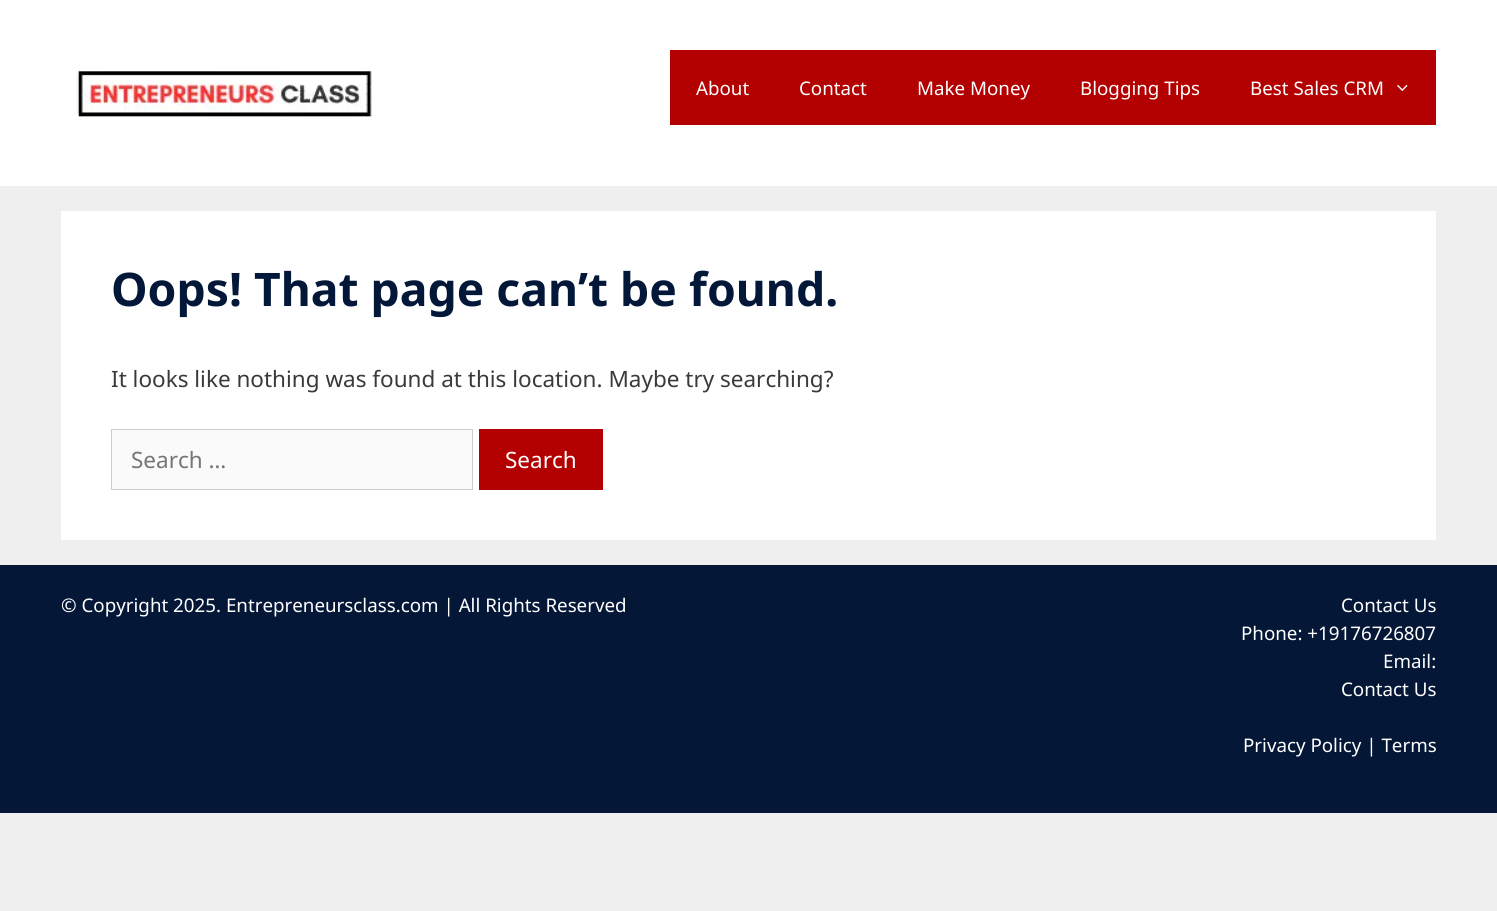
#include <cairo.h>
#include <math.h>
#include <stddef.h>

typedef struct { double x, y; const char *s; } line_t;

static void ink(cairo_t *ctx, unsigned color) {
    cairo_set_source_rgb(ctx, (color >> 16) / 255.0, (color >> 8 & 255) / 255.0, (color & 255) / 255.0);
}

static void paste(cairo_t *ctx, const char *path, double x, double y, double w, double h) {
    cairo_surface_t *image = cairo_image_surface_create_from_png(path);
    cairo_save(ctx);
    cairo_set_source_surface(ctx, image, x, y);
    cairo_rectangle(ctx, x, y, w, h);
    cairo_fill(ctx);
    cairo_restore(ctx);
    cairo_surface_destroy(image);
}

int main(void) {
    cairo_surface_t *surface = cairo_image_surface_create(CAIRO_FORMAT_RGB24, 1497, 911);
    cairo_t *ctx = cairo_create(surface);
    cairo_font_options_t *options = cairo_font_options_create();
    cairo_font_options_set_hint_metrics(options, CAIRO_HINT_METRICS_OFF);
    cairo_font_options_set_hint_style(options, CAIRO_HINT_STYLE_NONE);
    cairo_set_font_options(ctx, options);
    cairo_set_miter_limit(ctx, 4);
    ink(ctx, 0xEFEFEF);
    cairo_paint(ctx);
    ink(ctx, 0xFFFFFF);
    cairo_rectangle(ctx, 0, 0, 1497, 186);
    cairo_fill(ctx);
    paste(ctx, "media/1.png", 76, 70, 296, 50);
    ink(ctx, 0xB30000);
    cairo_rectangle(ctx, 670, 50, 766, 75);
    cairo_fill(ctx);
    cairo_select_font_face(ctx, "Noto Sans", CAIRO_FONT_SLANT_NORMAL, CAIRO_FONT_WEIGHT_NORMAL);
    cairo_set_font_size(ctx, 18.75);
    ink(ctx, 0xFFFFFF);
    {
        static const line_t items[] = {
            {696, 95, "About"},
            {799, 95, "Contact"},
            {917, 95, "Make Money"},
            {1080, 95, "Blogging Tips"},
            {1250, 95, "Best Sales CRM"},
        };
        for (size_t i = 0; i < sizeof items / sizeof *items; i++) {
            cairo_move_to(ctx, items[i].x, items[i].y);
            cairo_show_text(ctx, items[i].s);
        }
    }
    paste(ctx, "media/2.png", 1397, 85, 11, 6);
    cairo_rectangle(ctx, 61, 211, 1375, 329);
    cairo_fill(ctx);
    cairo_select_font_face(ctx, "Noto Sans", CAIRO_FONT_SLANT_NORMAL, CAIRO_FONT_WEIGHT_BOLD);
    cairo_set_font_size(ctx, 46.25);
    ink(ctx, 0x031839);
    cairo_move_to(ctx, 111, 306);
    cairo_show_text(ctx, "Oops! That page can’t be found.");
    cairo_select_font_face(ctx, "Noto Sans", CAIRO_FONT_SLANT_NORMAL, CAIRO_FONT_WEIGHT_NORMAL);
    cairo_set_font_size(ctx, 22.5);
    ink(ctx, 0x3A3A3A);
    cairo_move_to(ctx, 111, 387);
    cairo_show_text(ctx, "It looks like nothing was found at this location. Maybe try searching?");
    ink(ctx, 0xFAFAFA);
    cairo_rectangle(ctx, 111.5, 429.5, 361, 60);
    cairo_fill_preserve(ctx);
    ink(ctx, 0xCCCCCC);
    cairo_set_line_width(ctx, 1);
    cairo_stroke(ctx);
    ink(ctx, 0x757575);
    cairo_move_to(ctx, 131, 468);
    cairo_show_text(ctx, "Search …");
    ink(ctx, 0xB30000);
    cairo_rectangle(ctx, 479, 429, 124, 61);
    cairo_fill(ctx);
    ink(ctx, 0xFFFFFF);
    cairo_move_to(ctx, 505, 468);
    cairo_show_text(ctx, "Search");
    ink(ctx, 0x041737);
    cairo_rectangle(ctx, 0, 565, 1497, 248);
    cairo_fill(ctx);
    cairo_set_font_size(ctx, 18.75);
    ink(ctx, 0xFFFFFF);
    {
        static const line_t items[] = {
            {61, 612, "© Copyright 2025. Entrepreneursclass.com | All Rights Reserved"},
            {1341, 612, "Contact Us"},
            {1241, 640, "Phone: +19176726807"},
            {1383, 668, "Email:"},
            {1341, 696, "Contact Us"},
            {1243, 752, "Privacy Policy | Terms"},
        };
        for (size_t i = 0; i < sizeof items / sizeof *items; i++) {
            cairo_move_to(ctx, items[i].x, items[i].y);
            cairo_show_text(ctx, items[i].s);
        }
    }
    cairo_surface_write_to_png(surface, "image.png");
    cairo_font_options_destroy(options);
    cairo_destroy(ctx);
    cairo_surface_destroy(surface);
    return 0;
}
